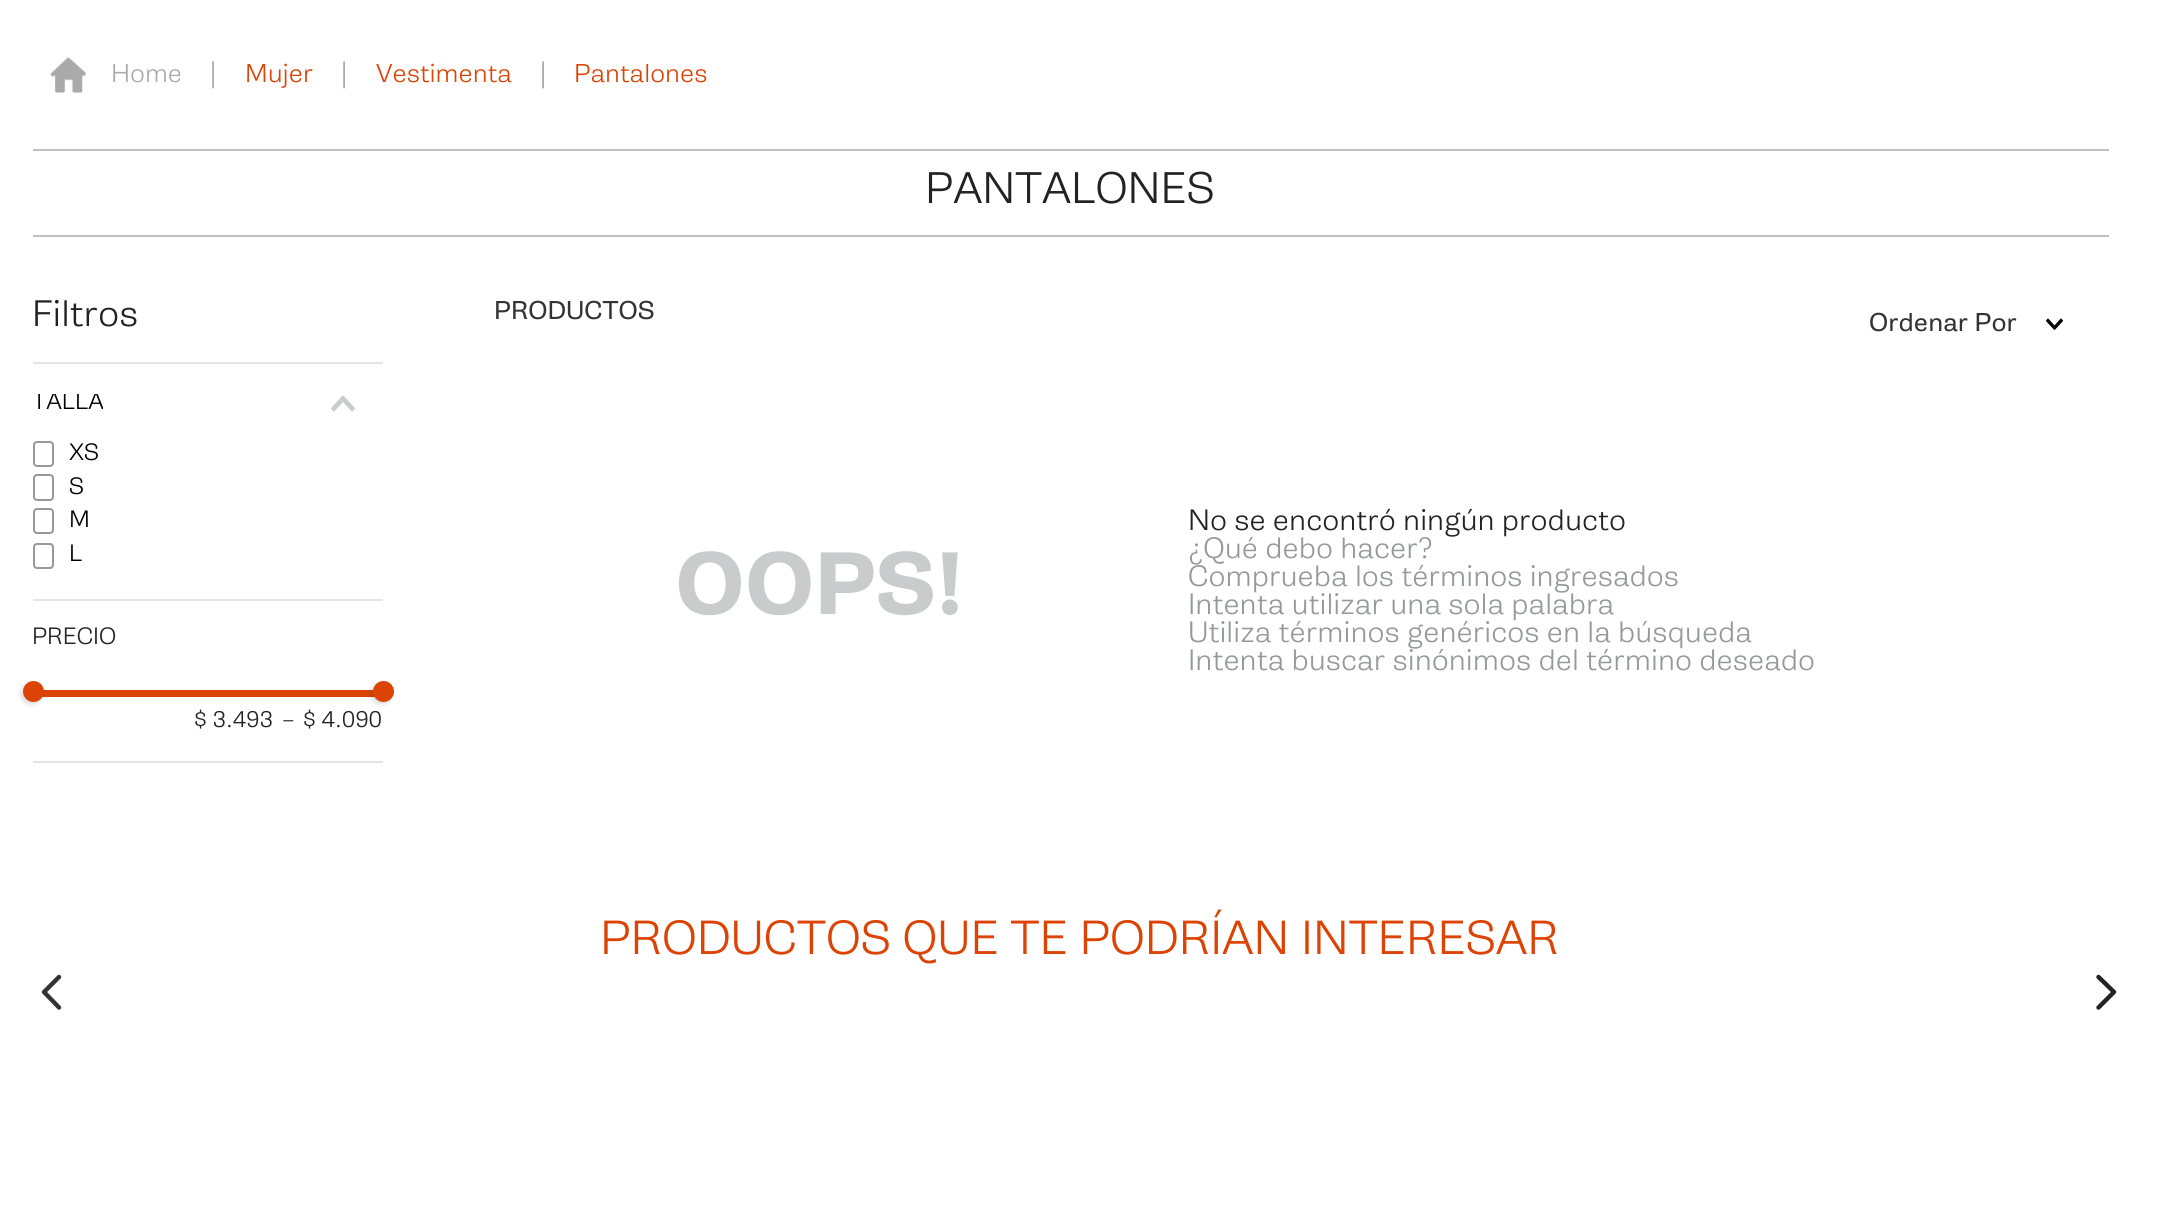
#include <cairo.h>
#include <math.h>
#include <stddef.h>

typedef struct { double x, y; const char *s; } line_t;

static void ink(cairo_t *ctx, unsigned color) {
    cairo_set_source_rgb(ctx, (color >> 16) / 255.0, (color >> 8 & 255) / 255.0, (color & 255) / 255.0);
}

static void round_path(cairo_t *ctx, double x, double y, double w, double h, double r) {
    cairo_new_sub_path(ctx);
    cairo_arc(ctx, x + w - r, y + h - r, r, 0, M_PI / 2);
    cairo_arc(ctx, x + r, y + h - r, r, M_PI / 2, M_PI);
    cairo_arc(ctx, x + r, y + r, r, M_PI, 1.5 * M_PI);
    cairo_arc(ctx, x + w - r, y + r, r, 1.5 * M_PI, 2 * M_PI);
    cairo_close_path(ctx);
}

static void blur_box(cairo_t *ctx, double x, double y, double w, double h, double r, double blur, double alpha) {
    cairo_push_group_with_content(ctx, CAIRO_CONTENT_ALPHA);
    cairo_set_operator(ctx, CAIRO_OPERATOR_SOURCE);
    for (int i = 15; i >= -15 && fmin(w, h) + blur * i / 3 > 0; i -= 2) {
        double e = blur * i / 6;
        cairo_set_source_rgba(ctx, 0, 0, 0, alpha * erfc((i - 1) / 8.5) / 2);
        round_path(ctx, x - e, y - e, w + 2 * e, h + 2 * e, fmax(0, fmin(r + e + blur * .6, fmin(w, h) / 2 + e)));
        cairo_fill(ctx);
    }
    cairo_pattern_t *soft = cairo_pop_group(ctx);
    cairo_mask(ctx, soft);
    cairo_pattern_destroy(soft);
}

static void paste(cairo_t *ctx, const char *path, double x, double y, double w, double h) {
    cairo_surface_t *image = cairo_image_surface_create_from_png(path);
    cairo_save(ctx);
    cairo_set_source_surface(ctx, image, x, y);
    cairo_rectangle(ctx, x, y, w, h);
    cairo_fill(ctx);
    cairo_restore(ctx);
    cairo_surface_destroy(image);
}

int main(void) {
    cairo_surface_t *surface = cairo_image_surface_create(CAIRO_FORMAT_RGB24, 2157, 1223);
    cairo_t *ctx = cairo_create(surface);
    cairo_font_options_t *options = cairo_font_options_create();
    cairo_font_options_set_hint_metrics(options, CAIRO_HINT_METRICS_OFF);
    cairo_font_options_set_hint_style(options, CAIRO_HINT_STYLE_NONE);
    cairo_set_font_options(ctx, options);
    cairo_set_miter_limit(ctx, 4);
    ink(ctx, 0xFFFFFF);
    cairo_paint(ctx);
    paste(ctx, "media/1.png", 50, 57, 36, 36);
    cairo_select_font_face(ctx, "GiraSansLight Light", CAIRO_FONT_SLANT_ITALIC, CAIRO_FONT_WEIGHT_NORMAL);
    cairo_set_font_size(ctx, 24.5);
    ink(ctx, 0xAAAAAA);
    cairo_move_to(ctx, 111, 82);
    cairo_show_text(ctx, "Home");
    cairo_set_font_size(ctx, 28);
    cairo_move_to(ctx, 208, 82);
    cairo_show_text(ctx, "|");
    cairo_set_font_size(ctx, 24.5);
    ink(ctx, 0xDC4405);
    cairo_move_to(ctx, 245, 82);
    cairo_show_text(ctx, "Mujer");
    cairo_set_font_size(ctx, 28);
    ink(ctx, 0xAAAAAA);
    cairo_move_to(ctx, 339, 82);
    cairo_show_text(ctx, "|");
    cairo_set_font_size(ctx, 24.5);
    ink(ctx, 0xDC4405);
    cairo_move_to(ctx, 376, 82);
    cairo_show_text(ctx, "Vestimenta");
    cairo_set_font_size(ctx, 28);
    ink(ctx, 0xAAAAAA);
    cairo_move_to(ctx, 538, 82);
    cairo_show_text(ctx, "|");
    cairo_set_font_size(ctx, 24.5);
    ink(ctx, 0xDC4405);
    cairo_move_to(ctx, 574, 82);
    cairo_show_text(ctx, "Pantalones");
    ink(ctx, 0xC0C0C0);
    cairo_rectangle(ctx, 33, 149, 2076, 2);
    cairo_fill(ctx);
    cairo_rectangle(ctx, 33, 235, 2076, 2);
    cairo_fill(ctx);
    cairo_set_font_size(ctx, 42);
    ink(ctx, 0x222222);
    cairo_move_to(ctx, 925, 203);
    cairo_show_text(ctx, "PANTALONES");
    ink(ctx, 0xE3E4E6);
    cairo_rectangle(ctx, 33, 362, 350, 2);
    cairo_fill(ctx);
    cairo_set_font_size(ctx, 35);
    ink(ctx, 0x222222);
    cairo_move_to(ctx, 32, 326);
    cairo_show_text(ctx, "Filtros");
    ink(ctx, 0xE3E4E6);
    cairo_rectangle(ctx, 33, 599, 350, 2);
    cairo_fill(ctx);
    cairo_save(ctx);
    cairo_rectangle(ctx, 33, 394, 70, 21);
    cairo_clip(ctx);
    cairo_set_font_size(ctx, 22.5);
    ink(ctx, 0x000000);
    cairo_move_to(ctx, 32, 409);
    cairo_show_text(ctx, "TALLA");
    cairo_restore(ctx);
    paste(ctx, "media/2.png", 331, 395, 24, 17);
    round_path(ctx, 34, 442, 19, 24, 3);
    ink(ctx, 0x999999);
    cairo_stroke(ctx);
    cairo_set_font_size(ctx, 22.5);
    ink(ctx, 0x000000);
    cairo_move_to(ctx, 69, 460);
    cairo_show_text(ctx, "XS");
    round_path(ctx, 34, 475, 19, 25, 3);
    ink(ctx, 0x999999);
    cairo_stroke(ctx);
    ink(ctx, 0x000000);
    cairo_move_to(ctx, 69, 494);
    cairo_show_text(ctx, "S");
    round_path(ctx, 34, 509, 19, 24, 3);
    ink(ctx, 0x999999);
    cairo_stroke(ctx);
    ink(ctx, 0x000000);
    cairo_move_to(ctx, 69, 527);
    cairo_show_text(ctx, "M");
    round_path(ctx, 34, 544, 19, 24, 3);
    ink(ctx, 0x999999);
    cairo_stroke(ctx);
    ink(ctx, 0x000000);
    cairo_move_to(ctx, 69, 561);
    cairo_show_text(ctx, "L");
    ink(ctx, 0xE3E4E6);
    cairo_rectangle(ctx, 33, 761, 350, 2);
    cairo_fill(ctx);
    ink(ctx, 0x222222);
    cairo_move_to(ctx, 32, 644);
    cairo_show_text(ctx, "PRECIO");
    ink(ctx, 0xDC4405);
    cairo_rectangle(ctx, 42, 690, 341, 7);
    cairo_fill(ctx);
    ink(ctx, 0x000000);
    blur_box(ctx, 21, 683, 21, 21, 10.5, 2.5, 0.15);
    ink(ctx, 0xDC4405);
    cairo_arc(ctx, 33.5, 691.5, 10.5, 0, 2 * M_PI);
    cairo_fill(ctx);
    ink(ctx, 0x000000);
    blur_box(ctx, 371, 683, 21, 21, 10.5, 2.5, 0.15);
    ink(ctx, 0xDC4405);
    cairo_arc(ctx, 383.5, 691.5, 10.5, 0, 2 * M_PI);
    cairo_fill(ctx);
    cairo_set_font_size(ctx, 21.5);
    ink(ctx, 0x222222);
    {
        static const line_t items[] = {
            {194, 727, "$ 3.493"},
            {281, 727, "–"},
            {303, 727, "$ 4.090"},
        };
        for (size_t i = 0; i < sizeof items / sizeof *items; i++) {
            cairo_move_to(ctx, items[i].x, items[i].y);
            cairo_show_text(ctx, items[i].s);
        }
    }
    cairo_select_font_face(ctx, "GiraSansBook", CAIRO_FONT_SLANT_NORMAL, CAIRO_FONT_WEIGHT_NORMAL);
    cairo_set_font_size(ctx, 24.5);
    ink(ctx, 0x333333);
    cairo_move_to(ctx, 494, 319);
    cairo_show_text(ctx, "PRODUCTOS");
    cairo_move_to(ctx, 1869, 331);
    cairo_show_text(ctx, "Ordenar Por");
    paste(ctx, "media/3.png", 2046, 318, 17, 12);
    cairo_select_font_face(ctx, "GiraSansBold", CAIRO_FONT_SLANT_NORMAL, CAIRO_FONT_WEIGHT_BOLD);
    cairo_set_font_size(ctx, 84);
    ink(ctx, 0xCACBCC);
    cairo_move_to(ctx, 675, 614);
    cairo_show_text(ctx, "OOPS!");
    cairo_select_font_face(ctx, "GiraSansLight Light", CAIRO_FONT_SLANT_ITALIC, CAIRO_FONT_WEIGHT_NORMAL);
    cairo_set_font_size(ctx, 28);
    ink(ctx, 0x222222);
    cairo_move_to(ctx, 1188, 530);
    cairo_show_text(ctx, "No se encontró ningún producto");
    ink(ctx, 0x979899);
    {
        static const line_t items[] = {
            {1188, 558, "¿Qué debo hacer?"},
            {1188, 586, "Comprueba los términos ingresados"},
            {1188, 614, "Intenta utilizar una sola palabra"},
            {1188, 642, "Utiliza términos genéricos en la búsqueda"},
            {1188, 670, "Intenta buscar sinónimos del término deseado"},
        };
        for (size_t i = 0; i < sizeof items / sizeof *items; i++) {
            cairo_move_to(ctx, items[i].x, items[i].y);
            cairo_show_text(ctx, items[i].s);
        }
    }
    cairo_set_font_size(ctx, 45.5);
    ink(ctx, 0xDC4405);
    cairo_move_to(ctx, 600, 954);
    cairo_show_text(ctx, "PRODUCTOS QUE TE PODRÍAN INTERESAR");
    cairo_new_path(ctx);
    cairo_move_to(ctx, 59, 977);
    cairo_line_to(ctx, 44, 992);
    cairo_line_to(ctx, 59, 1007.5);
    ink(ctx, 0x333333);
    cairo_set_line_width(ctx, 4.4);
    cairo_set_line_cap(ctx, CAIRO_LINE_CAP_ROUND);
    cairo_set_line_join(ctx, CAIRO_LINE_JOIN_ROUND);
    cairo_stroke(ctx);
    cairo_new_path(ctx);
    cairo_move_to(ctx, 2098.5, 1007.5);
    cairo_line_to(ctx, 2114, 992);
    cairo_line_to(ctx, 2098.5, 977);
    ink(ctx, 0x222222);
    cairo_stroke(ctx);
    cairo_surface_write_to_png(surface, "image.png");
    cairo_font_options_destroy(options);
    cairo_destroy(ctx);
    cairo_surface_destroy(surface);
    return 0;
}
